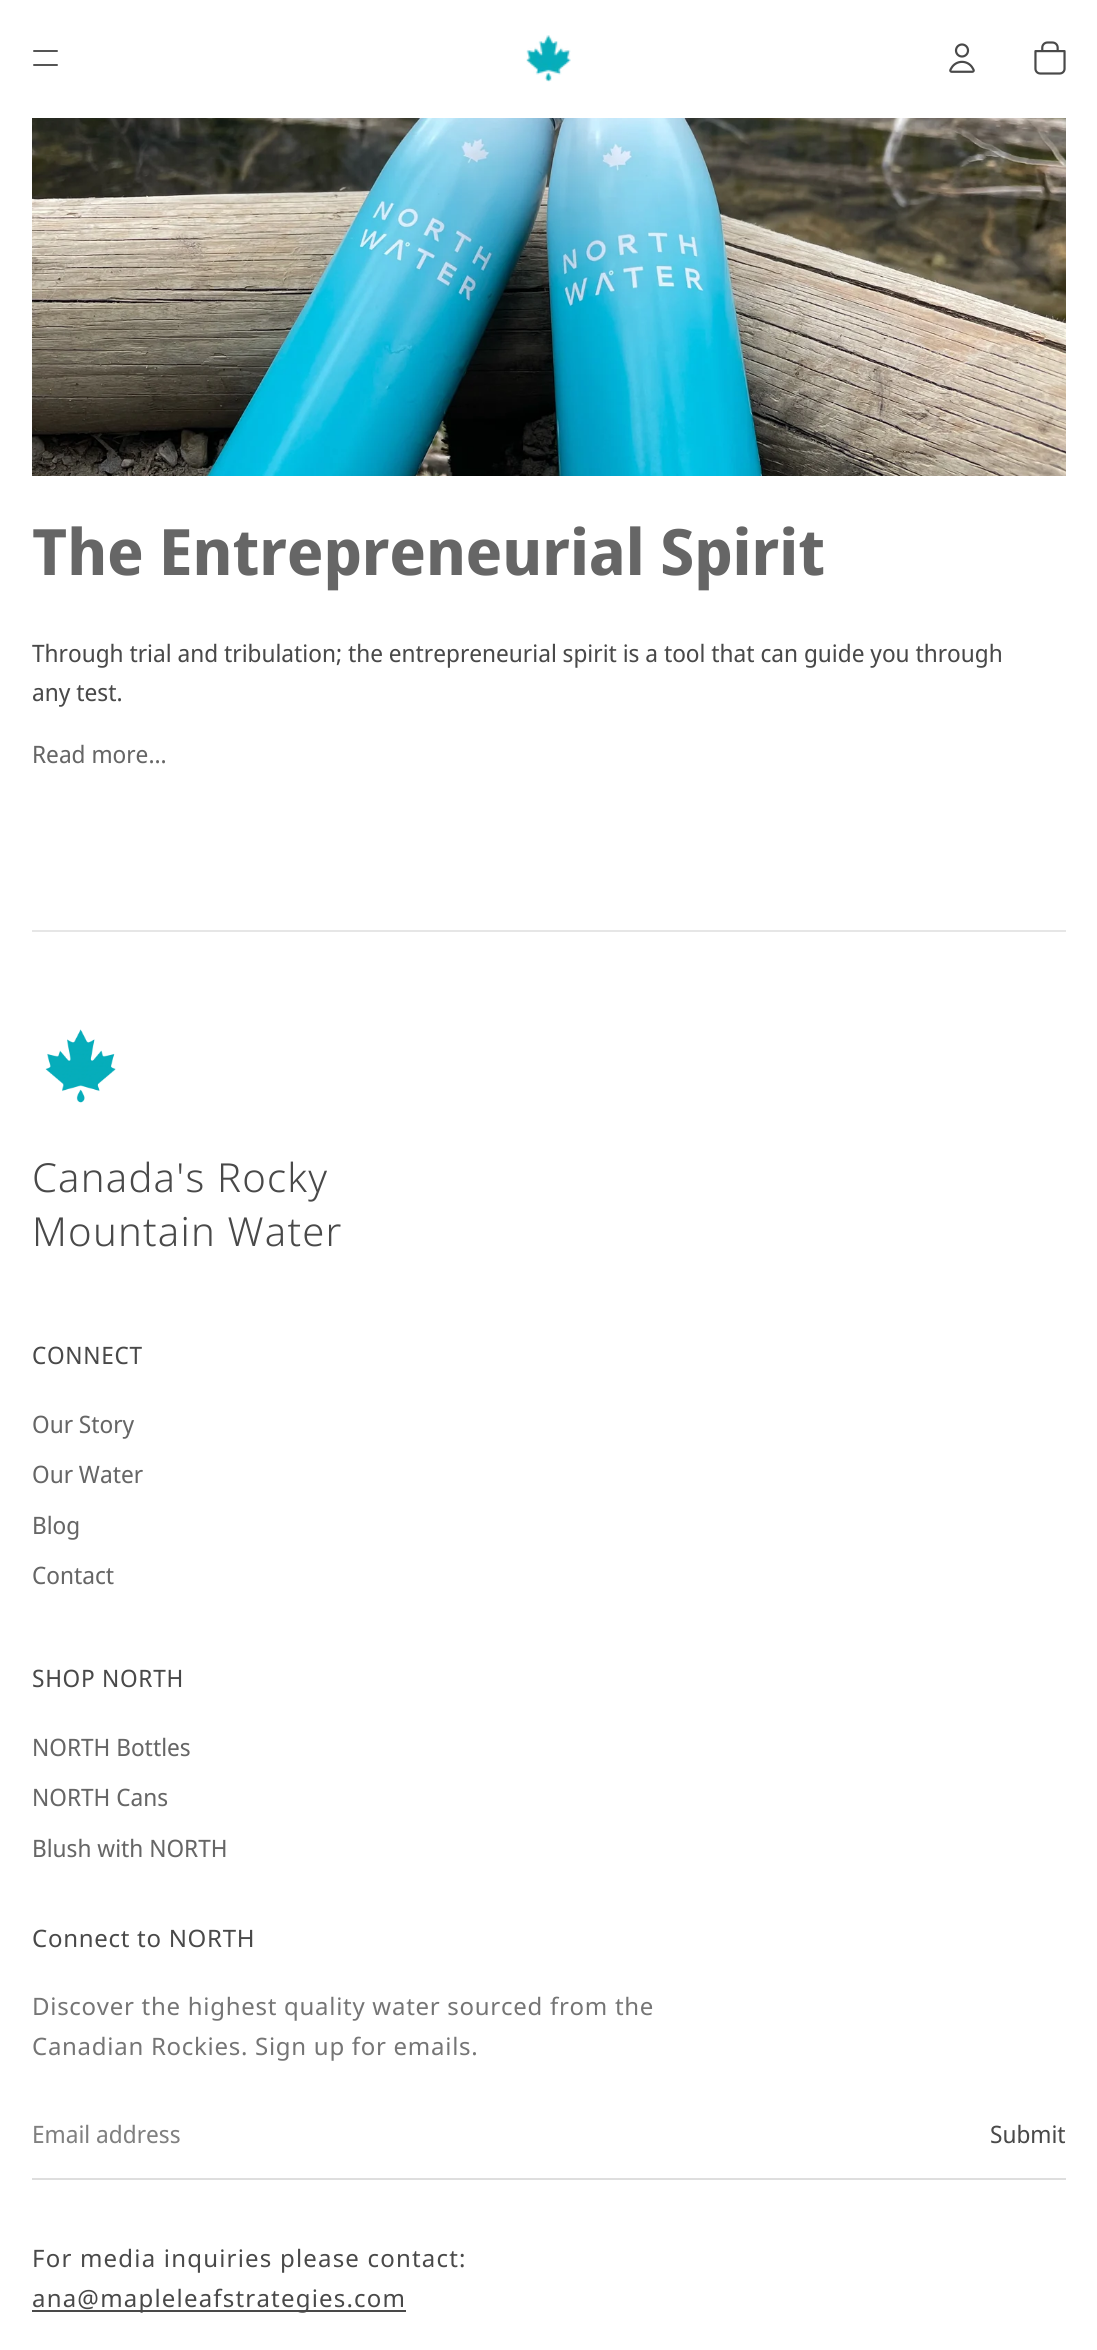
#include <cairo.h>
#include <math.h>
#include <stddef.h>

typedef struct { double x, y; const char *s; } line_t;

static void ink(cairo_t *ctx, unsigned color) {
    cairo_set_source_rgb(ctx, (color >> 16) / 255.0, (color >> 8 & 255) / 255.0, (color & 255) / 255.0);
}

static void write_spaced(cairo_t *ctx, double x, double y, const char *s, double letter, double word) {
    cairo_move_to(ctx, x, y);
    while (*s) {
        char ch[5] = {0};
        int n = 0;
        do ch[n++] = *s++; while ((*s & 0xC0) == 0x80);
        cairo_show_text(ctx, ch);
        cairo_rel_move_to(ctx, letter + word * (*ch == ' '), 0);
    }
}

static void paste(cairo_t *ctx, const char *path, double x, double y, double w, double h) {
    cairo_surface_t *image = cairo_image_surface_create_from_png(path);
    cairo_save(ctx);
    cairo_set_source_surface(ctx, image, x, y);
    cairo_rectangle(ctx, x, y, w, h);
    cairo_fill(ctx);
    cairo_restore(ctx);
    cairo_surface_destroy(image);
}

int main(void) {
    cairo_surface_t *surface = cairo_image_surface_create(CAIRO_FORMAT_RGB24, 1097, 2350);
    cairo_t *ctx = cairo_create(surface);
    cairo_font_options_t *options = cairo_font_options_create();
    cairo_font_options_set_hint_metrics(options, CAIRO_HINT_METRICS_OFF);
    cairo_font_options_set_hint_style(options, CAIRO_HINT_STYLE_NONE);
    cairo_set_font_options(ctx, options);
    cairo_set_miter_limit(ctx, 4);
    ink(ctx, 0xFFFFFF);
    cairo_paint(ctx);
    cairo_new_path(ctx);
    cairo_move_to(ctx, 34, 51);
    cairo_line_to(ctx, 57, 51);
    cairo_move_to(ctx, 34, 65);
    cairo_line_to(ctx, 57, 65);
    ink(ctx, 0x494949);
    cairo_set_line_width(ctx, 1.9);
    cairo_set_line_cap(ctx, CAIRO_LINE_CAP_ROUND);
    cairo_stroke(ctx);
    paste(ctx, "media/1.png", 526, 35, 45, 47);
    paste(ctx, "media/2.png", 949, 43, 26, 30);
    paste(ctx, "media/3.png", 1034, 41, 32, 34);
    paste(ctx, "media/4.png", 32, 118, 1034, 358);
    cairo_select_font_face(ctx, "Noto Sans Display", CAIRO_FONT_SLANT_NORMAL, CAIRO_FONT_WEIGHT_BOLD);
    cairo_set_font_size(ctx, 64);
    ink(ctx, 0x666666);
    cairo_move_to(ctx, 32, 575);
    cairo_show_text(ctx, "The Entrepreneurial Spirit");
    cairo_select_font_face(ctx, "Noto Sans Display", CAIRO_FONT_SLANT_NORMAL, CAIRO_FONT_WEIGHT_NORMAL);
    cairo_set_font_size(ctx, 24);
    ink(ctx, 0x494949);
    cairo_move_to(ctx, 32, 662);
    cairo_show_text(ctx, "Through trial and tribulation; the entrepreneurial spirit is a tool that can guide you through");
    cairo_move_to(ctx, 32, 701);
    cairo_show_text(ctx, "any test.");
    ink(ctx, 0x666666);
    cairo_move_to(ctx, 32, 763);
    cairo_show_text(ctx, "Read more...");
    ink(ctx, 0xE6E6E6);
    cairo_rectangle(ctx, 32, 930, 1034, 2);
    cairo_fill(ctx);
    paste(ctx, "media/5.png", 45, 1029, 71, 74);
    cairo_select_font_face(ctx, "Noto Sans Light", CAIRO_FONT_SLANT_NORMAL, CAIRO_FONT_WEIGHT_NORMAL);
    cairo_set_font_size(ctx, 40);
    ink(ctx, 0x494949);
    write_spaced(ctx, 32, 1192, "Canada's Rocky", 1.2, 0);
    write_spaced(ctx, 32, 1246, "Mountain Water", 1.2, 0);
    cairo_select_font_face(ctx, "Noto Sans Display", CAIRO_FONT_SLANT_NORMAL, CAIRO_FONT_WEIGHT_NORMAL);
    cairo_set_font_size(ctx, 24);
    write_spaced(ctx, 32, 1364, "CONNECT", 0.72, 0);
    ink(ctx, 0x666666);
    {
        static const line_t items[] = {
            {32, 1433, "Our Story"},
            {32, 1483, "Our Water"},
            {32, 1534, "Blog"},
            {32, 1584, "Contact"},
        };
        for (size_t i = 0; i < sizeof items / sizeof *items; i++) {
            cairo_move_to(ctx, items[i].x, items[i].y);
            cairo_show_text(ctx, items[i].s);
        }
    }
    ink(ctx, 0x494949);
    write_spaced(ctx, 32, 1687, "SHOP NORTH", 0.72, 0);
    ink(ctx, 0x666666);
    {
        static const line_t items[] = {
            {32, 1756, "NORTH Bottles"},
            {32, 1806, "NORTH Cans"},
            {32, 1857, "Blush with NORTH"},
        };
        for (size_t i = 0; i < sizeof items / sizeof *items; i++) {
            cairo_move_to(ctx, items[i].x, items[i].y);
            cairo_show_text(ctx, items[i].s);
        }
    }
    cairo_select_font_face(ctx, "Noto Sans", CAIRO_FONT_SLANT_NORMAL, CAIRO_FONT_WEIGHT_NORMAL);
    ink(ctx, 0x494949);
    write_spaced(ctx, 32, 1947, "Connect to NORTH", 0.72, 0);
    ink(ctx, 0x757575);
    write_spaced(ctx, 32, 2015, "Discover the highest quality water sourced from the", 0.72, 0);
    write_spaced(ctx, 32, 2055, "Canadian Rockies. Sign up for emails.", 0.72, 0);
    ink(ctx, 0xDEDEDE);
    cairo_rectangle(ctx, 32, 2178, 1034, 2);
    cairo_fill(ctx);
    cairo_select_font_face(ctx, "Noto Sans Display", CAIRO_FONT_SLANT_NORMAL, CAIRO_FONT_WEIGHT_NORMAL);
    ink(ctx, 0x808080);
    cairo_move_to(ctx, 32, 2143);
    cairo_show_text(ctx, "Email address");
    ink(ctx, 0x494949);
    cairo_move_to(ctx, 990, 2143);
    cairo_show_text(ctx, "Submit");
    cairo_select_font_face(ctx, "Noto Sans", CAIRO_FONT_SLANT_NORMAL, CAIRO_FONT_WEIGHT_NORMAL);
    write_spaced(ctx, 32, 2267, "For media inquiries please contact:", 1.2, 0);
    cairo_rectangle(ctx, 32, 2310, 374, 2);
    cairo_fill(ctx);
    write_spaced(ctx, 32, 2307, "ana@mapleleafstrategies.com", 1.2, 0);
    cairo_surface_write_to_png(surface, "image.png");
    cairo_font_options_destroy(options);
    cairo_destroy(ctx);
    cairo_surface_destroy(surface);
    return 0;
}
